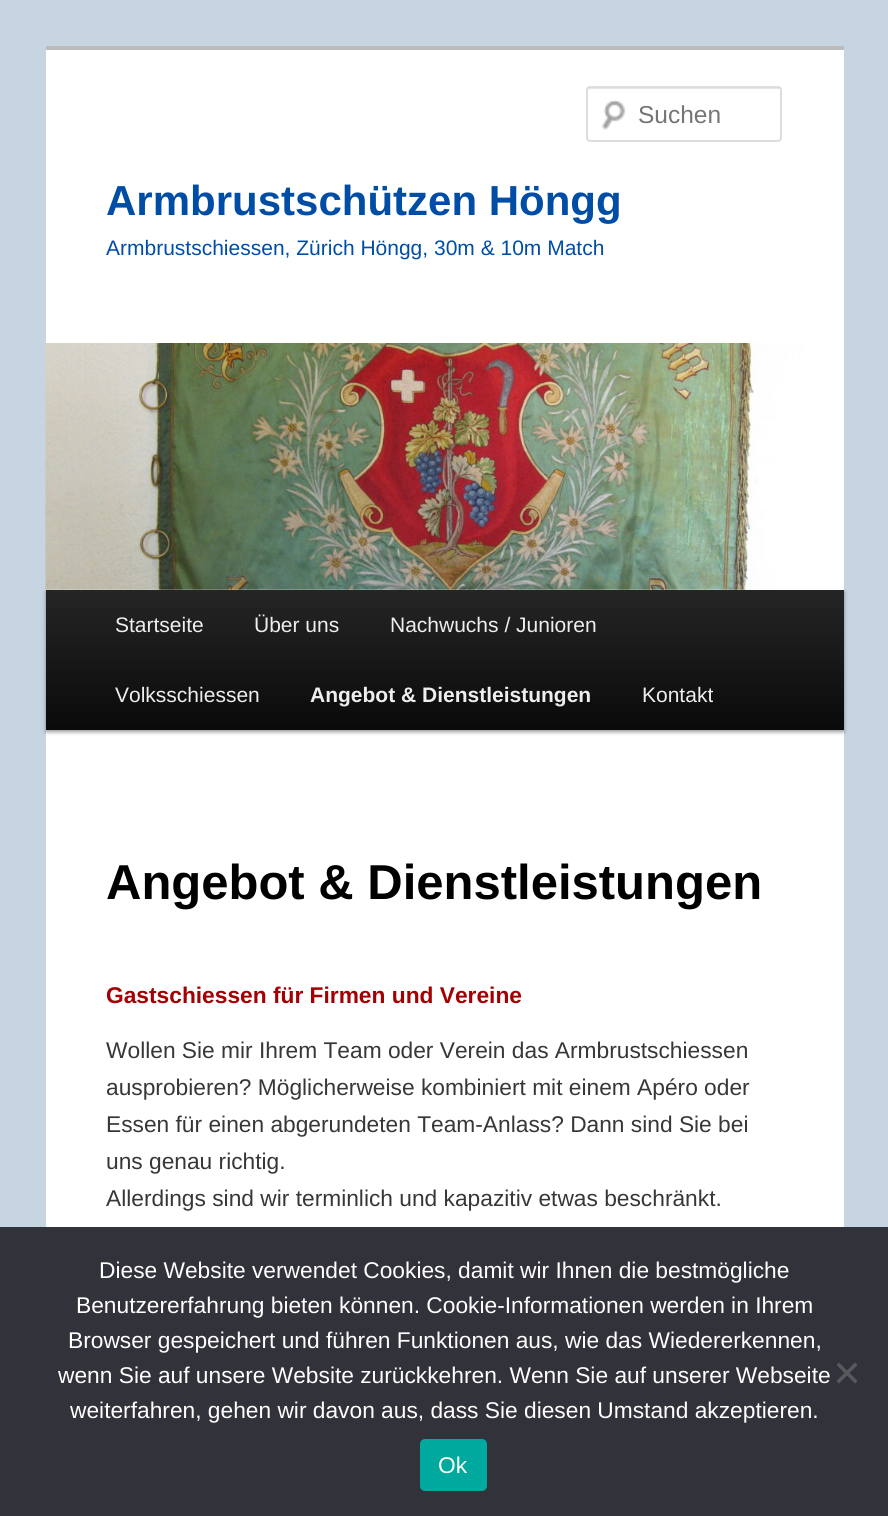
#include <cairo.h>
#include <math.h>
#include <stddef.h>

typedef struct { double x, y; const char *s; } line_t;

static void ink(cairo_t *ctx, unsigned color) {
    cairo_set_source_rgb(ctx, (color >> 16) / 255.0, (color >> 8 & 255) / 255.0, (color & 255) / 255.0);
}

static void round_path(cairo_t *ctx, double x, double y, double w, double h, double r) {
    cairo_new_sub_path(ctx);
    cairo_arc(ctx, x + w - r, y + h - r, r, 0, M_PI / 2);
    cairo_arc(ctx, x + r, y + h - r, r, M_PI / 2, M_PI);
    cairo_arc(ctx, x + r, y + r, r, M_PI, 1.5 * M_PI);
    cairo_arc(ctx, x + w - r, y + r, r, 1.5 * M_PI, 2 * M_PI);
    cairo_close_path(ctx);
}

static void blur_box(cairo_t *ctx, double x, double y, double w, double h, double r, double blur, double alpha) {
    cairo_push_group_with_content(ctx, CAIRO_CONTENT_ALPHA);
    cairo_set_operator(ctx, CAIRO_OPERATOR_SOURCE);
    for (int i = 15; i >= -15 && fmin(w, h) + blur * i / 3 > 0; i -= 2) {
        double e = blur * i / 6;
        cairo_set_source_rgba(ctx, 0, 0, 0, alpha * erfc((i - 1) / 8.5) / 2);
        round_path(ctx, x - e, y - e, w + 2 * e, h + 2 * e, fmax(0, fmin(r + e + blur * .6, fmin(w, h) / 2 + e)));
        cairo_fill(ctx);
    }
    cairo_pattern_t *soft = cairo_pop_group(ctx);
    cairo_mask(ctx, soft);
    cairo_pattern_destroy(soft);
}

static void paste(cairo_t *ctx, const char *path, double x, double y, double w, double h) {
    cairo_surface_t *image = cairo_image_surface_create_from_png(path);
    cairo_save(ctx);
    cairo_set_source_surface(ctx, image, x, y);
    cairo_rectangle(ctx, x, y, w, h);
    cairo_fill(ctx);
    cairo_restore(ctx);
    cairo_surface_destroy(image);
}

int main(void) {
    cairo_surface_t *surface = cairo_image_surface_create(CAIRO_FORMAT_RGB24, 888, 1516);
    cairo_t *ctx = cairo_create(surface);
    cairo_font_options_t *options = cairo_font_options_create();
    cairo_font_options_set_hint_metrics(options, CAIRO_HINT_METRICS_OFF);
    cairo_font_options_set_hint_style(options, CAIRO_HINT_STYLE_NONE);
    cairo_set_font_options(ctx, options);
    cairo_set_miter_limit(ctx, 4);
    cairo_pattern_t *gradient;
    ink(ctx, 0xC7D5E2);
    cairo_paint(ctx);
    ink(ctx, 0xFFFFFF);
    cairo_rectangle(ctx, 46, 50, 798, 1177);
    cairo_fill(ctx);
    ink(ctx, 0xBBBBBB);
    cairo_rectangle(ctx, 46, 46, 798, 4);
    cairo_fill(ctx);
    paste(ctx, "media/1.png", 601, 100, 25, 30);
    ink(ctx, 0xE6E6E6);
    cairo_new_path(ctx);
    cairo_move_to(ctx, 590, 89);
    cairo_line_to(ctx, 779, 89);
    cairo_curve_to(ctx, 780, 89, 780, 90, 780, 91);
    cairo_line_to(ctx, 780, 140);
    cairo_curve_to(ctx, 781, 139, 781, 139, 781, 138);
    cairo_line_to(ctx, 781, 90);
    cairo_curve_to(ctx, 781, 89, 780, 88, 779, 88);
    cairo_line_to(ctx, 590, 88);
    cairo_curve_to(ctx, 589, 88, 588, 89, 588, 90);
    cairo_line_to(ctx, 588, 91);
    cairo_curve_to(ctx, 588, 90, 589, 89, 590, 89);
    cairo_close_path(ctx);
    cairo_fill(ctx);
    round_path(ctx, 587, 87, 194, 54, 3);
    ink(ctx, 0xDDDDDD);
    cairo_stroke(ctx);
    cairo_select_font_face(ctx, "Liberation Sans", CAIRO_FONT_SLANT_NORMAL, CAIRO_FONT_WEIGHT_NORMAL);
    cairo_set_font_size(ctx, 24.5);
    ink(ctx, 0x757575);
    cairo_move_to(ctx, 638, 123);
    cairo_show_text(ctx, "Suchen");
    cairo_select_font_face(ctx, "Liberation Sans", CAIRO_FONT_SLANT_NORMAL, CAIRO_FONT_WEIGHT_BOLD);
    cairo_set_font_size(ctx, 42);
    ink(ctx, 0x004DA5);
    cairo_move_to(ctx, 106, 215);
    cairo_show_text(ctx, "Armbrustschützen Höngg");
    cairo_select_font_face(ctx, "Liberation Sans", CAIRO_FONT_SLANT_NORMAL, CAIRO_FONT_WEIGHT_NORMAL);
    cairo_set_font_size(ctx, 21);
    cairo_move_to(ctx, 106, 255);
    cairo_show_text(ctx, "Armbrustschiessen, Zürich Höngg, 30m & 10m Match");
    ink(ctx, 0x000000);
    blur_box(ctx, 46, 592, 798, 140, 0, 2, 0.4);
    paste(ctx, "media/2.png", 45, 343, 798, 247);
    gradient = cairo_pattern_create_linear(445, 590, 445, 730);
    cairo_pattern_add_color_stop_rgba(gradient, 0, 0.145, 0.145, 0.145, 1);
    cairo_pattern_add_color_stop_rgba(gradient, 1, 0.039, 0.039, 0.039, 1);
    cairo_set_source(ctx, gradient);
    cairo_pattern_destroy(gradient);
    cairo_rectangle(ctx, 46, 590, 798, 140);
    cairo_fill(ctx);
    ink(ctx, 0xEEEEEE);
    {
        static const line_t items[] = {
            {115, 632, "Startseite"},
            {254, 632, "Über uns"},
            {390, 632, "Nachwuchs / Junioren"},
            {115, 702, "Volksschiessen"},
        };
        for (size_t i = 0; i < sizeof items / sizeof *items; i++) {
            cairo_move_to(ctx, items[i].x, items[i].y);
            cairo_show_text(ctx, items[i].s);
        }
    }
    cairo_select_font_face(ctx, "Liberation Sans", CAIRO_FONT_SLANT_NORMAL, CAIRO_FONT_WEIGHT_BOLD);
    cairo_move_to(ctx, 310, 702);
    cairo_show_text(ctx, "Angebot & Dienstleistungen");
    cairo_select_font_face(ctx, "Liberation Sans", CAIRO_FONT_SLANT_NORMAL, CAIRO_FONT_WEIGHT_NORMAL);
    cairo_move_to(ctx, 642, 702);
    cairo_show_text(ctx, "Kontakt");
    cairo_select_font_face(ctx, "Liberation Sans", CAIRO_FONT_SLANT_NORMAL, CAIRO_FONT_WEIGHT_BOLD);
    cairo_set_font_size(ctx, 49);
    ink(ctx, 0x000000);
    cairo_move_to(ctx, 106, 899);
    cairo_show_text(ctx, "Angebot & Dienstleistungen");
    cairo_set_font_size(ctx, 22.75);
    ink(ctx, 0xA30003);
    cairo_move_to(ctx, 106, 1003);
    cairo_show_text(ctx, "Gastschiessen für Firmen und Vereine");
    cairo_select_font_face(ctx, "Liberation Sans", CAIRO_FONT_SLANT_NORMAL, CAIRO_FONT_WEIGHT_NORMAL);
    ink(ctx, 0x373737);
    {
        static const line_t items[] = {
            {106, 1058, "Wollen Sie mir Ihrem Team oder Verein das Armbrustschiessen"},
            {106, 1095, "ausprobieren? Möglicherweise kombiniert mit einem Apéro oder"},
            {106, 1132, "Essen für einen abgerundeten Team-Anlass? Dann sind Sie bei"},
            {106, 1169, "uns genau richtig."},
            {106, 1206, "Allerdings sind wir terminlich und kapazitiv etwas beschränkt."},
        };
        for (size_t i = 0; i < sizeof items / sizeof *items; i++) {
            cairo_move_to(ctx, items[i].x, items[i].y);
            cairo_show_text(ctx, items[i].s);
        }
    }
    ink(ctx, 0x32323A);
    cairo_rectangle(ctx, 0, 1227, 888, 289);
    cairo_fill(ctx);
    ink(ctx, 0xFFFFFF);
    {
        static const line_t items[] = {
            {99, 1278, "Diese Website verwendet Cookies, damit wir Ihnen die bestmögliche"},
            {76, 1313, "Benutzererfahrung bieten können. Cookie-Informationen werden in Ihrem"},
            {68, 1348, "Browser gespeichert und führen Funktionen aus, wie das Wiedererkennen,"},
            {58, 1383, "wenn Sie auf unsere Website zurückkehren. Wenn Sie auf unserer Webseite"},
            {70, 1418, "weiterfahren, gehen wir davon aus, dass Sie diesen Umstand akzeptieren."},
        };
        for (size_t i = 0; i < sizeof items / sizeof *items; i++) {
            cairo_move_to(ctx, items[i].x, items[i].y);
            cairo_show_text(ctx, items[i].s);
        }
    }
    ink(ctx, 0x59595D);
    cairo_new_path(ctx);
    cairo_move_to(ctx, 855, 1362.5);
    cairo_line_to(ctx, 857.5, 1365);
    cairo_line_to(ctx, 839, 1383.5);
    cairo_line_to(ctx, 836.5, 1381);
    cairo_close_path(ctx);
    cairo_fill(ctx);
    cairo_new_path(ctx);
    cairo_move_to(ctx, 836.5, 1365);
    cairo_line_to(ctx, 839, 1362.5);
    cairo_line_to(ctx, 857.5, 1381);
    cairo_line_to(ctx, 855, 1383.5);
    cairo_close_path(ctx);
    cairo_fill(ctx);
    ink(ctx, 0x00A99D);
    round_path(ctx, 420, 1439, 67, 52, 5);
    cairo_fill(ctx);
    ink(ctx, 0xFFFFFF);
    cairo_move_to(ctx, 438, 1473);
    cairo_show_text(ctx, "Ok");
    cairo_surface_write_to_png(surface, "image.png");
    cairo_font_options_destroy(options);
    cairo_destroy(ctx);
    cairo_surface_destroy(surface);
    return 0;
}
